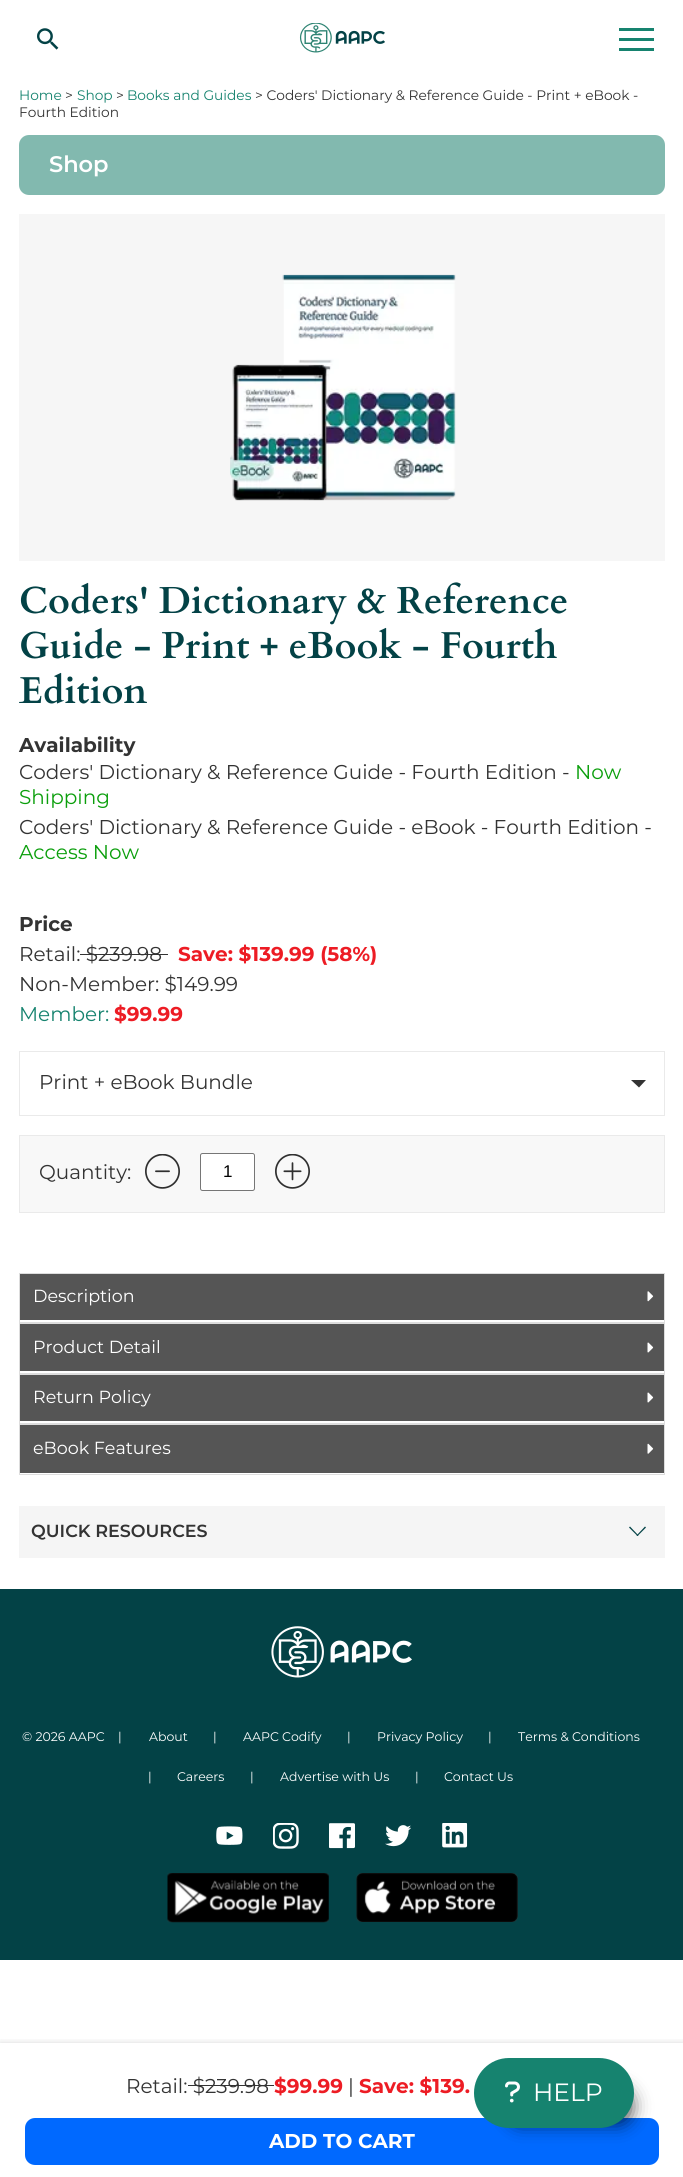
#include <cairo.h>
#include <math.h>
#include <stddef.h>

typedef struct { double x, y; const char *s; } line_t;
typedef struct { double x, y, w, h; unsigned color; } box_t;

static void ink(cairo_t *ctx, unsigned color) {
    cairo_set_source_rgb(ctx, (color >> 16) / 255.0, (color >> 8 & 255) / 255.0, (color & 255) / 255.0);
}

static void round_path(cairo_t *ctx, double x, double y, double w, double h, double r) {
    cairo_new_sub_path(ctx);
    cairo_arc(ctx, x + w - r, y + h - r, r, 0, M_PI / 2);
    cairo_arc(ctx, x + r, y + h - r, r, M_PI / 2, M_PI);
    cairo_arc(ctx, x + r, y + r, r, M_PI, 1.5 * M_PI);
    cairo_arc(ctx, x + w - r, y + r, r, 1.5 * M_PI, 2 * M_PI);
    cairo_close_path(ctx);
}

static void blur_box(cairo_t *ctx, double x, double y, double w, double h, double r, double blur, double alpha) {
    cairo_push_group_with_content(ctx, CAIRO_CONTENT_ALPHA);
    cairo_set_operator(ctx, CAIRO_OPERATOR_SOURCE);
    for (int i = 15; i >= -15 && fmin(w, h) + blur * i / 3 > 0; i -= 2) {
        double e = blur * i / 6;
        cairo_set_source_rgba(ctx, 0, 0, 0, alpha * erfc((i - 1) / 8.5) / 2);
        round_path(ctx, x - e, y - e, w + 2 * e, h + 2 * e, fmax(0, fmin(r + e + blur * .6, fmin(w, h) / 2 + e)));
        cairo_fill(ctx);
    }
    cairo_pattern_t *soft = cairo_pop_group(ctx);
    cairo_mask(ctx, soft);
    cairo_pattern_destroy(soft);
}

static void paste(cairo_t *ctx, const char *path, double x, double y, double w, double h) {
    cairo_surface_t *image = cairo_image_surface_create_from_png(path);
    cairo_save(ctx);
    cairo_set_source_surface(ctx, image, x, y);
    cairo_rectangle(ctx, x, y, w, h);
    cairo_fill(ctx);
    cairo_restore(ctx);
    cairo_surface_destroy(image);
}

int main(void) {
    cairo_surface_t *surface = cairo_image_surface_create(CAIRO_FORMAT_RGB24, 683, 2177);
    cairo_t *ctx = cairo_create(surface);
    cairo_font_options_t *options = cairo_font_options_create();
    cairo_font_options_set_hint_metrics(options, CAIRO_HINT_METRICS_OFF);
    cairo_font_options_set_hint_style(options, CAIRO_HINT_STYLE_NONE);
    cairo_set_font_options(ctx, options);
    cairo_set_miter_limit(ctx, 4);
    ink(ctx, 0xFFFFFF);
    cairo_paint(ctx);
    paste(ctx, "media/1.png", 37, 28, 22, 22);
    paste(ctx, "media/2.png", 299, 23, 86, 30);
    {
        static const box_t items[] = {
            {619, 28, 35, 3, 0x16836F},
            {619, 38, 35, 3, 0x16836F},
            {619, 48, 35, 3, 0x16836F},
        };
        for (size_t i = 0; i < sizeof items / sizeof *items; i++) {
            ink(ctx, items[i].color);
            cairo_rectangle(ctx, items[i].x, items[i].y, items[i].w, items[i].h);
            cairo_fill(ctx);
        }
    }
    cairo_select_font_face(ctx, "Montserrat", CAIRO_FONT_SLANT_NORMAL, CAIRO_FONT_WEIGHT_NORMAL);
    cairo_set_font_size(ctx, 13.75);
    cairo_move_to(ctx, 19, 100);
    cairo_show_text(ctx, "Home");
    ink(ctx, 0x333333);
    cairo_move_to(ctx, 65, 100);
    cairo_show_text(ctx, ">");
    ink(ctx, 0x16836F);
    cairo_move_to(ctx, 77, 100);
    cairo_show_text(ctx, "Shop");
    ink(ctx, 0x333333);
    cairo_move_to(ctx, 116, 100);
    cairo_show_text(ctx, ">");
    ink(ctx, 0x16836F);
    cairo_move_to(ctx, 127, 100);
    cairo_show_text(ctx, "Books and Guides");
    ink(ctx, 0x333333);
    cairo_move_to(ctx, 255, 100);
    cairo_show_text(ctx, "> Coders' Dictionary & Reference Guide - Print + eBook -");
    cairo_move_to(ctx, 19, 117);
    cairo_show_text(ctx, "Fourth Edition");
    ink(ctx, 0x82B9AF);
    round_path(ctx, 19, 135, 646, 60, 10);
    cairo_fill(ctx);
    cairo_select_font_face(ctx, "Montserrat SemiBold", CAIRO_FONT_SLANT_NORMAL, CAIRO_FONT_WEIGHT_NORMAL);
    cairo_set_font_size(ctx, 22.5);
    ink(ctx, 0xFFFFFF);
    cairo_move_to(ctx, 49, 172);
    cairo_show_text(ctx, "Shop");
    ink(ctx, 0xF6F6F6);
    cairo_rectangle(ctx, 19, 214, 646, 347);
    cairo_fill(ctx);
    paste(ctx, "media/3.png", 230, 274, 226, 227);
    cairo_select_font_face(ctx, "Cardo", CAIRO_FONT_SLANT_NORMAL, CAIRO_FONT_WEIGHT_BOLD);
    cairo_set_font_size(ctx, 37.5);
    ink(ctx, 0x034246);
    {
        static const line_t items[] = {
            {19, 613, "Coders' Dictionary & Reference"},
            {19, 658, "Guide - Print + eBook - Fourth"},
            {19, 703, "Edition"},
        };
        for (size_t i = 0; i < sizeof items / sizeof *items; i++) {
            cairo_move_to(ctx, items[i].x, items[i].y);
            cairo_show_text(ctx, items[i].s);
        }
    }
    cairo_select_font_face(ctx, "Montserrat", CAIRO_FONT_SLANT_NORMAL, CAIRO_FONT_WEIGHT_BOLD);
    cairo_set_font_size(ctx, 20);
    ink(ctx, 0x333333);
    cairo_move_to(ctx, 19, 752);
    cairo_show_text(ctx, "Availability");
    cairo_select_font_face(ctx, "Montserrat", CAIRO_FONT_SLANT_NORMAL, CAIRO_FONT_WEIGHT_NORMAL);
    cairo_move_to(ctx, 19, 779);
    cairo_show_text(ctx, "Coders' Dictionary & Reference Guide - Fourth Edition -");
    ink(ctx, 0x0B9F0C);
    cairo_move_to(ctx, 575, 779);
    cairo_show_text(ctx, "Now");
    cairo_move_to(ctx, 19, 804);
    cairo_show_text(ctx, "Shipping");
    ink(ctx, 0x333333);
    cairo_move_to(ctx, 19, 834);
    cairo_show_text(ctx, "Coders' Dictionary & Reference Guide - eBook - Fourth Edition -");
    ink(ctx, 0x0B9F0C);
    cairo_move_to(ctx, 19, 859);
    cairo_show_text(ctx, "Access Now");
    cairo_select_font_face(ctx, "Montserrat", CAIRO_FONT_SLANT_NORMAL, CAIRO_FONT_WEIGHT_BOLD);
    ink(ctx, 0x333333);
    cairo_move_to(ctx, 19, 931);
    cairo_show_text(ctx, "Price");
    cairo_select_font_face(ctx, "Montserrat", CAIRO_FONT_SLANT_NORMAL, CAIRO_FONT_WEIGHT_NORMAL);
    cairo_move_to(ctx, 19, 961);
    cairo_show_text(ctx, "Retail: $239.98");
    cairo_select_font_face(ctx, "Montserrat", CAIRO_FONT_SLANT_NORMAL, CAIRO_FONT_WEIGHT_BOLD);
    ink(ctx, 0xED1C24);
    cairo_move_to(ctx, 178, 961);
    cairo_show_text(ctx, "Save: $139.99 (58%)");
    ink(ctx, 0x333333);
    cairo_rectangle(ctx, 80, 954, 88, 1);
    cairo_fill(ctx);
    cairo_select_font_face(ctx, "Montserrat", CAIRO_FONT_SLANT_NORMAL, CAIRO_FONT_WEIGHT_NORMAL);
    cairo_move_to(ctx, 19, 991);
    cairo_show_text(ctx, "Non-Member: $149.99");
    ink(ctx, 0x16836F);
    cairo_move_to(ctx, 19, 1021);
    cairo_show_text(ctx, "Member:");
    cairo_select_font_face(ctx, "Montserrat", CAIRO_FONT_SLANT_NORMAL, CAIRO_FONT_WEIGHT_BOLD);
    ink(ctx, 0xED1C24);
    cairo_move_to(ctx, 114, 1021);
    cairo_show_text(ctx, "$99.99");
    cairo_rectangle(ctx, 19.5, 1051.5, 645, 64);
    ink(ctx, 0xEAEAEA);
    cairo_set_line_width(ctx, 1);
    cairo_stroke(ctx);
    cairo_select_font_face(ctx, "Montserrat", CAIRO_FONT_SLANT_NORMAL, CAIRO_FONT_WEIGHT_NORMAL);
    ink(ctx, 0x333333);
    cairo_move_to(ctx, 39, 1089);
    cairo_show_text(ctx, "Print + eBook Bundle");
    cairo_new_path(ctx);
    cairo_move_to(ctx, 631, 1080);
    cairo_line_to(ctx, 646, 1080);
    cairo_line_to(ctx, 639, 1087.5);
    cairo_close_path(ctx);
    cairo_fill(ctx);
    ink(ctx, 0xF8F8F8);
    cairo_rectangle(ctx, 19.5, 1135.5, 645, 77);
    cairo_fill_preserve(ctx);
    ink(ctx, 0xEAEAEA);
    cairo_stroke(ctx);
    ink(ctx, 0x333333);
    cairo_move_to(ctx, 39, 1179);
    cairo_show_text(ctx, "Quantity:");
    paste(ctx, "media/4.png", 145, 1154, 35, 35);
    ink(ctx, 0xFFFFFF);
    round_path(ctx, 200.5, 1153.5, 54, 37, 2);
    cairo_fill_preserve(ctx);
    ink(ctx, 0x767676);
    cairo_stroke(ctx);
    cairo_select_font_face(ctx, "Liberation Sans", CAIRO_FONT_SLANT_NORMAL, CAIRO_FONT_WEIGHT_NORMAL);
    cairo_set_font_size(ctx, 17);
    ink(ctx, 0x000000);
    cairo_move_to(ctx, 223, 1177);
    cairo_show_text(ctx, "1");
    paste(ctx, "media/5.png", 275, 1154, 35, 35);
    cairo_save(ctx);
    cairo_rectangle(ctx, 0, 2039, 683, 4);
    cairo_clip(ctx);
    ink(ctx, 0x000000);
    blur_box(ctx, 0, 2044, 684, 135, 0, 4, 0.2);
    cairo_restore(ctx);
    cairo_select_font_face(ctx, "Montserrat", CAIRO_FONT_SLANT_NORMAL, CAIRO_FONT_WEIGHT_NORMAL);
    cairo_set_font_size(ctx, 20);
    ink(ctx, 0x333333);
    cairo_move_to(ctx, 126, 2093);
    cairo_show_text(ctx, "Retail: $239.98");
    cairo_select_font_face(ctx, "Montserrat", CAIRO_FONT_SLANT_NORMAL, CAIRO_FONT_WEIGHT_BOLD);
    ink(ctx, 0xED1C24);
    cairo_move_to(ctx, 274, 2093);
    cairo_show_text(ctx, "$99.99");
    cairo_select_font_face(ctx, "Montserrat", CAIRO_FONT_SLANT_NORMAL, CAIRO_FONT_WEIGHT_NORMAL);
    ink(ctx, 0x333333);
    cairo_move_to(ctx, 348, 2093);
    cairo_show_text(ctx, "|");
    cairo_select_font_face(ctx, "Montserrat", CAIRO_FONT_SLANT_NORMAL, CAIRO_FONT_WEIGHT_BOLD);
    ink(ctx, 0xED1C24);
    cairo_move_to(ctx, 359, 2093);
    cairo_show_text(ctx, "Save: $139.");
    ink(ctx, 0x333333);
    cairo_rectangle(ctx, 188, 2085, 86, 1);
    cairo_fill(ctx);
    ink(ctx, 0x0069FF);
    round_path(ctx, 25, 2118, 634, 47, 10);
    cairo_fill(ctx);
    ink(ctx, 0xFFFFFF);
    cairo_move_to(ctx, 269, 2148);
    cairo_show_text(ctx, "ADD TO CART");
    cairo_rectangle(ctx, 19.5, 1273.5, 645, 49);
    ink(ctx, 0xDDDDDD);
    cairo_stroke(ctx);
    ink(ctx, 0x555555);
    cairo_rectangle(ctx, 20, 1274, 644, 46);
    cairo_fill(ctx);
    cairo_select_font_face(ctx, "Montserrat", CAIRO_FONT_SLANT_NORMAL, CAIRO_FONT_WEIGHT_NORMAL);
    cairo_set_font_size(ctx, 17.5);
    ink(ctx, 0xFFFFFF);
    cairo_move_to(ctx, 33, 1302);
    cairo_show_text(ctx, "Description");
    paste(ctx, "media/6.png", 647, 1291, 7, 11);
    cairo_rectangle(ctx, 19.5, 1323.5, 645, 50);
    ink(ctx, 0xDDDDDD);
    cairo_stroke(ctx);
    ink(ctx, 0x555555);
    cairo_rectangle(ctx, 20, 1324, 644, 47);
    cairo_fill(ctx);
    ink(ctx, 0xFFFFFF);
    cairo_move_to(ctx, 33, 1353);
    cairo_show_text(ctx, "Product Detail");
    paste(ctx, "media/7.png", 647, 1342, 7, 11);
    cairo_rectangle(ctx, 19.5, 1374.5, 645, 49);
    ink(ctx, 0xDDDDDD);
    cairo_stroke(ctx);
    ink(ctx, 0x555555);
    cairo_rectangle(ctx, 20, 1375, 644, 46);
    cairo_fill(ctx);
    ink(ctx, 0xFFFFFF);
    cairo_move_to(ctx, 33, 1403);
    cairo_show_text(ctx, "Return Policy");
    paste(ctx, "media/7.png", 647, 1392, 7, 11);
    cairo_rectangle(ctx, 19.5, 1424.5, 645, 50);
    ink(ctx, 0xDDDDDD);
    cairo_stroke(ctx);
    ink(ctx, 0x555555);
    cairo_rectangle(ctx, 20, 1425, 644, 48);
    cairo_fill(ctx);
    ink(ctx, 0xFFFFFF);
    cairo_move_to(ctx, 33, 1454);
    cairo_show_text(ctx, "eBook Features");
    paste(ctx, "media/8.png", 647, 1443, 7, 11);
    ink(ctx, 0xF5F5F5);
    cairo_rectangle(ctx, 19, 1506, 646, 52);
    cairo_fill(ctx);
    cairo_select_font_face(ctx, "Montserrat SemiBold", CAIRO_FONT_SLANT_NORMAL, CAIRO_FONT_WEIGHT_NORMAL);
    ink(ctx, 0x333333);
    cairo_move_to(ctx, 31, 1537);
    cairo_show_text(ctx, "QUICK RESOURCES");
    ink(ctx, 0x034246);
    cairo_new_path(ctx);
    cairo_move_to(ctx, 630, 1526.5);
    cairo_line_to(ctx, 638.5, 1535.5);
    cairo_line_to(ctx, 637.5, 1536);
    cairo_line_to(ctx, 629, 1527.5);
    cairo_close_path(ctx);
    cairo_fill(ctx);
    cairo_new_path(ctx);
    cairo_move_to(ctx, 636.5, 1535.5);
    cairo_line_to(ctx, 645, 1526.5);
    cairo_line_to(ctx, 646, 1527.5);
    cairo_line_to(ctx, 637.5, 1536);
    cairo_close_path(ctx);
    cairo_fill(ctx);
    cairo_rectangle(ctx, 0, 1589, 683, 371);
    cairo_fill(ctx);
    paste(ctx, "media/9.png", 271, 1626, 141, 52);
    cairo_select_font_face(ctx, "Montserrat", CAIRO_FONT_SLANT_NORMAL, CAIRO_FONT_WEIGHT_NORMAL);
    cairo_set_font_size(ctx, 12.5);
    ink(ctx, 0xFFFFFF);
    {
        static const line_t items[] = {
            {22, 1741, "© 2026 AAPC"},
            {118, 1741, "|"},
            {149, 1741, "About"},
            {213, 1741, "|"},
            {243, 1741, "AAPC Codify"},
            {347, 1741, "|"},
            {377, 1741, "Privacy Policy"},
            {488, 1741, "|"},
            {518, 1741, "Terms & Conditions"},
            {148, 1781, "|"},
            {177, 1781, "Careers"},
            {250, 1781, "|"},
            {280, 1781, "Advertise with Us"},
            {415, 1781, "|"},
            {444, 1781, "Contact Us"},
        };
        for (size_t i = 0; i < sizeof items / sizeof *items; i++) {
            cairo_move_to(ctx, items[i].x, items[i].y);
            cairo_show_text(ctx, items[i].s);
        }
    }
    paste(ctx, "media/10.png", 216, 1826, 27, 19);
    paste(ctx, "media/11.png", 273, 1823, 26, 26);
    paste(ctx, "media/12.png", 329, 1823, 26, 26);
    paste(ctx, "media/13.png", 385, 1825, 26, 22);
    paste(ctx, "media/14.png", 442, 1823, 26, 25);
    paste(ctx, "media/15.png", 167, 1873, 162, 50);
    paste(ctx, "media/16.png", 356, 1873, 162, 49);
    ink(ctx, 0x000000);
    blur_box(ctx, 509, 2090, 122, 33, 16.5, 9.5, 0.75);
    ink(ctx, 0x16836F);
    round_path(ctx, 474, 2058, 160, 70, 35);
    cairo_fill(ctx);
    paste(ctx, "media/17.png", 505, 2081, 15, 22);
    cairo_set_font_size(ctx, 25);
    ink(ctx, 0xFFFFFF);
    cairo_move_to(ctx, 533, 2101);
    cairo_show_text(ctx, "HELP");
    cairo_surface_write_to_png(surface, "image.png");
    cairo_font_options_destroy(options);
    cairo_destroy(ctx);
    cairo_surface_destroy(surface);
    return 0;
}
